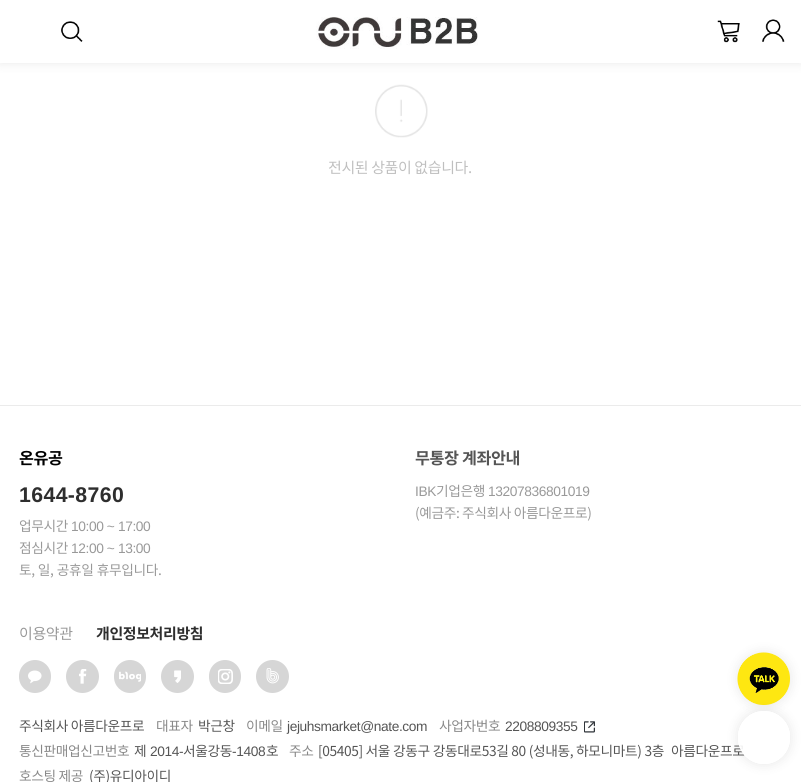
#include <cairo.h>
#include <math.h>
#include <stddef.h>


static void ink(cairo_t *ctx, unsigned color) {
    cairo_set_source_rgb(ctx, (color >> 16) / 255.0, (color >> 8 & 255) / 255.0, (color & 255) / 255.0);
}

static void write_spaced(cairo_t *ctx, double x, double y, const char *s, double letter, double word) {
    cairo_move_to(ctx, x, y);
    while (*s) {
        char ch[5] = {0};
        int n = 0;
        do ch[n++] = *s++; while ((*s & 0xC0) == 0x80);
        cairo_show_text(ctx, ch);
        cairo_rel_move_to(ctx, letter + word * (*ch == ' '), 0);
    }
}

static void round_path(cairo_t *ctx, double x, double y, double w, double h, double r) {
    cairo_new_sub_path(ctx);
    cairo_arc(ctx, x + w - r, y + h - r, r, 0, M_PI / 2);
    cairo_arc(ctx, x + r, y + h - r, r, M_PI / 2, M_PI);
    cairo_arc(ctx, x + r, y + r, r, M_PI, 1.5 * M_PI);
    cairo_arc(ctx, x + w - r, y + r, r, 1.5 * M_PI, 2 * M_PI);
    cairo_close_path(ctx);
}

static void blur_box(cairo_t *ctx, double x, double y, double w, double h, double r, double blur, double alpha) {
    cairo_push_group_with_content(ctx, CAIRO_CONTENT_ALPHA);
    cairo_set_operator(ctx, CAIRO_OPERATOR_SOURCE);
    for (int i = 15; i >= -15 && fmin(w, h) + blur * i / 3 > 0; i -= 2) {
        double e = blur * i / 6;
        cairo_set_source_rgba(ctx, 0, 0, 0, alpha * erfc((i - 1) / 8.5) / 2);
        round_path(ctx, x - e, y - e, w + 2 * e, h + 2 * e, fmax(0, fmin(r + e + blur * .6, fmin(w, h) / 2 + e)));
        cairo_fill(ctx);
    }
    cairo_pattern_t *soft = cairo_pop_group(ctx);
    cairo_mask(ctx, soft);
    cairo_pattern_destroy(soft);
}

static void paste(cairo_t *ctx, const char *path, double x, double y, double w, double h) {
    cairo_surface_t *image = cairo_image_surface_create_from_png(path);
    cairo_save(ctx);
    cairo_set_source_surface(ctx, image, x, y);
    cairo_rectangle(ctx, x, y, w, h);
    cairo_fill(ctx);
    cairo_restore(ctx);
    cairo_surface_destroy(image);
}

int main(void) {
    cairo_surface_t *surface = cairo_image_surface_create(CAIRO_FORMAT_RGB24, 801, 782);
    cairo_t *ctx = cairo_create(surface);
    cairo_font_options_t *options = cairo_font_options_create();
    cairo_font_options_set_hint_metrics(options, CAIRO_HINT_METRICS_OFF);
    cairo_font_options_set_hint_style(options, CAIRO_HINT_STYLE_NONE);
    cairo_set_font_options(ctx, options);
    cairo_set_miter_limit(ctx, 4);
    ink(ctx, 0xFFFFFF);
    cairo_paint(ctx);
    cairo_save(ctx);
    cairo_set_fill_rule(ctx, CAIRO_FILL_RULE_EVEN_ODD);
    cairo_new_path(ctx);
    cairo_move_to(ctx, 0, 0);
    cairo_line_to(ctx, 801, 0);
    cairo_line_to(ctx, 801, 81);
    cairo_line_to(ctx, 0, 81);
    cairo_close_path(ctx);
    cairo_move_to(ctx, 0, 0);
    cairo_line_to(ctx, 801, 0);
    cairo_line_to(ctx, 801, 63);
    cairo_line_to(ctx, 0, 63);
    cairo_close_path(ctx);
    cairo_clip(ctx);
    ink(ctx, 0x000000);
    blur_box(ctx, 0, 0, 801, 63, 0, 5.5, 0.09);
    cairo_restore(ctx);
    cairo_set_source_rgba(ctx, 1, 1, 1, 0.9);
    cairo_rectangle(ctx, 0, 62, 801, 1);
    cairo_fill(ctx);
    paste(ctx, "media/1.png", 61, 21, 22, 21);
    paste(ctx, "media/2.png", 316, 17, 162, 32);
    paste(ctx, "media/3.png", 717, 20, 23, 23);
    paste(ctx, "media/4.png", 762, 19, 23, 23);
    paste(ctx, "media/5.png", 375, 84, 53, 54);
    cairo_select_font_face(ctx, "Noto Sans KR", CAIRO_FONT_SLANT_NORMAL, CAIRO_FONT_WEIGHT_NORMAL);
    cairo_set_font_size(ctx, 15);
    ink(ctx, 0xBFBFBF);
    write_spaced(ctx, 328, 173, "전시된 상품이 없습니다.", -0.4, 0);
    ink(ctx, 0xEBEBEB);
    cairo_rectangle(ctx, 0, 405, 801, 1);
    cairo_fill(ctx);
    cairo_select_font_face(ctx, "Noto Sans KR", CAIRO_FONT_SLANT_NORMAL, CAIRO_FONT_WEIGHT_BOLD);
    cairo_set_font_size(ctx, 16.25);
    ink(ctx, 0x000000);
    write_spaced(ctx, 19, 464, "온유공", -0.4, 0);
    cairo_select_font_face(ctx, "Liberation Sans", CAIRO_FONT_SLANT_NORMAL, CAIRO_FONT_WEIGHT_BOLD);
    cairo_set_font_size(ctx, 21.25);
    ink(ctx, 0x2E2E2E);
    write_spaced(ctx, 19, 502, "1644-8760", 0.4, 0);
    cairo_select_font_face(ctx, "Noto Sans KR", CAIRO_FONT_SLANT_NORMAL, CAIRO_FONT_WEIGHT_NORMAL);
    cairo_set_font_size(ctx, 13.75);
    ink(ctx, 0x999999);
    write_spaced(ctx, 19, 531, "업무시간", -0.4, 0);
    cairo_select_font_face(ctx, "Liberation Sans", CAIRO_FONT_SLANT_NORMAL, CAIRO_FONT_WEIGHT_NORMAL);
    write_spaced(ctx, 71, 531, "10:00 ~ 17:00", -0.4, 0);
    cairo_select_font_face(ctx, "Noto Sans KR", CAIRO_FONT_SLANT_NORMAL, CAIRO_FONT_WEIGHT_NORMAL);
    write_spaced(ctx, 19, 553, "점심시간", -0.4, 0);
    cairo_select_font_face(ctx, "Liberation Sans", CAIRO_FONT_SLANT_NORMAL, CAIRO_FONT_WEIGHT_NORMAL);
    write_spaced(ctx, 71, 553, "12:00 ~ 13:00", -0.4, 0);
    cairo_select_font_face(ctx, "Noto Sans KR", CAIRO_FONT_SLANT_NORMAL, CAIRO_FONT_WEIGHT_NORMAL);
    write_spaced(ctx, 19, 575, "토, 일, 공휴일 휴무입니다.", -0.4, 0.5);
    cairo_select_font_face(ctx, "Noto Sans KR", CAIRO_FONT_SLANT_NORMAL, CAIRO_FONT_WEIGHT_BOLD);
    cairo_set_font_size(ctx, 16.25);
    ink(ctx, 0x555555);
    write_spaced(ctx, 415, 464, "무통장 계좌안내", -0.4, 0);
    cairo_select_font_face(ctx, "Liberation Sans", CAIRO_FONT_SLANT_NORMAL, CAIRO_FONT_WEIGHT_NORMAL);
    cairo_set_font_size(ctx, 13.75);
    ink(ctx, 0x999999);
    write_spaced(ctx, 415, 496, "IBK", -0.4, 0);
    cairo_select_font_face(ctx, "Noto Sans KR", CAIRO_FONT_SLANT_NORMAL, CAIRO_FONT_WEIGHT_NORMAL);
    write_spaced(ctx, 436, 496, "기업은행", -0.4, 0);
    cairo_select_font_face(ctx, "Liberation Sans", CAIRO_FONT_SLANT_NORMAL, CAIRO_FONT_WEIGHT_NORMAL);
    write_spaced(ctx, 488, 496, "13207836801019", -0.4, 0);
    cairo_select_font_face(ctx, "Noto Sans KR", CAIRO_FONT_SLANT_NORMAL, CAIRO_FONT_WEIGHT_NORMAL);
    write_spaced(ctx, 415, 518, "(예금주: 주식회사 아름다운프로)", -0.4, 0);
    cairo_set_font_size(ctx, 15);
    write_spaced(ctx, 19, 639, "이용약관", -0.4, 0);
    cairo_select_font_face(ctx, "Noto Sans KR", CAIRO_FONT_SLANT_NORMAL, CAIRO_FONT_WEIGHT_BOLD);
    ink(ctx, 0x2E2E2E);
    write_spaced(ctx, 96, 639, "개인정보처리방침", -0.4, 0);
    ink(ctx, 0xD6D6D6);
    round_path(ctx, 19, 660, 32, 33, 16);
    cairo_fill(ctx);
    paste(ctx, "media/6.png", 28, 670, 14, 14);
    cairo_arc(ctx, 82.5, 676.5, 16.5, 0, 2 * M_PI);
    cairo_fill(ctx);
    paste(ctx, "media/7.png", 79, 669, 8, 15);
    round_path(ctx, 114, 660, 32, 33, 16);
    cairo_fill(ctx);
    paste(ctx, "media/8.png", 119, 671, 22, 11);
    cairo_arc(ctx, 177.5, 676.5, 16.5, 0, 2 * M_PI);
    cairo_fill(ctx);
    paste(ctx, "media/9.png", 174, 670, 7, 13);
    round_path(ctx, 209, 660, 32, 33, 16);
    cairo_fill(ctx);
    paste(ctx, "media/10.png", 218, 669, 15, 15);
    cairo_arc(ctx, 272.5, 676.5, 16.5, 0, 2 * M_PI);
    cairo_fill(ctx);
    paste(ctx, "media/11.png", 266, 668, 13, 16);
    cairo_select_font_face(ctx, "Noto Sans KR", CAIRO_FONT_SLANT_NORMAL, CAIRO_FONT_WEIGHT_NORMAL);
    cairo_set_font_size(ctx, 13.75);
    ink(ctx, 0x555555);
    write_spaced(ctx, 19, 731, "주식회사 아름다운프로", -0.4, 0);
    ink(ctx, 0x888888);
    write_spaced(ctx, 156, 731, "대표자", -0.4, 0);
    ink(ctx, 0x555555);
    write_spaced(ctx, 198, 731, "박근창", -0.4, 0);
    ink(ctx, 0x888888);
    write_spaced(ctx, 246, 731, "이메일", -0.4, 0);
    cairo_select_font_face(ctx, "Liberation Sans", CAIRO_FONT_SLANT_NORMAL, CAIRO_FONT_WEIGHT_NORMAL);
    ink(ctx, 0x555555);
    write_spaced(ctx, 287, 731, "jejuhsmarket@nate.com", -0.4, 0);
    cairo_select_font_face(ctx, "Noto Sans KR", CAIRO_FONT_SLANT_NORMAL, CAIRO_FONT_WEIGHT_NORMAL);
    ink(ctx, 0x888888);
    write_spaced(ctx, 439, 731, "사업자번호", -0.4, 0);
    cairo_select_font_face(ctx, "Liberation Sans", CAIRO_FONT_SLANT_NORMAL, CAIRO_FONT_WEIGHT_NORMAL);
    ink(ctx, 0x555555);
    write_spaced(ctx, 505, 731, "2208809355", -0.4, 0);
    paste(ctx, "media/12.png", 584, 721, 11, 12);
    cairo_select_font_face(ctx, "Noto Sans KR", CAIRO_FONT_SLANT_NORMAL, CAIRO_FONT_WEIGHT_NORMAL);
    ink(ctx, 0x888888);
    write_spaced(ctx, 19, 756, "통신판매업신고번호", -0.4, 0);
    ink(ctx, 0x555555);
    write_spaced(ctx, 134, 756, "제", -0.4, 0);
    cairo_select_font_face(ctx, "Liberation Sans", CAIRO_FONT_SLANT_NORMAL, CAIRO_FONT_WEIGHT_NORMAL);
    write_spaced(ctx, 150, 756, "2014-", -0.4, 0);
    cairo_select_font_face(ctx, "Noto Sans KR", CAIRO_FONT_SLANT_NORMAL, CAIRO_FONT_WEIGHT_NORMAL);
    write_spaced(ctx, 183, 756, "서울강동", -0.4, 0);
    cairo_select_font_face(ctx, "Liberation Sans", CAIRO_FONT_SLANT_NORMAL, CAIRO_FONT_WEIGHT_NORMAL);
    write_spaced(ctx, 232, 756, "-1408", -0.4, 0);
    cairo_select_font_face(ctx, "Noto Sans KR", CAIRO_FONT_SLANT_NORMAL, CAIRO_FONT_WEIGHT_NORMAL);
    write_spaced(ctx, 266, 756, "호", -0.4, 0);
    ink(ctx, 0x888888);
    write_spaced(ctx, 289, 756, "주소", -0.4, 0);
    ink(ctx, 0x555555);
    write_spaced(ctx, 318, 756, "[05405] 서울 강동구 강동대로53길 80 (성내동, 하모니마트) 3층", -0.4, 0.25);
    write_spaced(ctx, 671, 756, "아름다운프로", -0.4, 0.25);
    ink(ctx, 0x888888);
    write_spaced(ctx, 19, 781, "호스팅 제공", -0.4, 0);
    ink(ctx, 0x555555);
    write_spaced(ctx, 89, 781, "(주)유디아이디", -0.4, 0);
    ink(ctx, 0x000000);
    blur_box(ctx, 738, 653, 52, 52, 26, 6, 0.1);
    paste(ctx, "media/13.png", 737, 652, 53, 53);
    cairo_save(ctx);
    cairo_set_fill_rule(ctx, CAIRO_FILL_RULE_EVEN_ODD);
    cairo_new_path(ctx);
    cairo_move_to(ctx, 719, 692);
    cairo_line_to(ctx, 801, 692);
    cairo_line_to(ctx, 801, 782);
    cairo_line_to(ctx, 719, 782);
    cairo_close_path(ctx);
    cairo_move_to(ctx, 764, 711);
    cairo_curve_to(ctx, 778.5, 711, 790, 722.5, 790, 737);
    cairo_line_to(ctx, 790, 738);
    cairo_curve_to(ctx, 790, 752.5, 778.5, 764, 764, 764);
    cairo_curve_to(ctx, 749.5, 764, 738, 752.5, 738, 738);
    cairo_line_to(ctx, 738, 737);
    cairo_curve_to(ctx, 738, 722.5, 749.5, 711, 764, 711);
    cairo_close_path(ctx);
    cairo_clip(ctx);
    blur_box(ctx, 738, 711, 52, 53, 26, 6, 0.1);
    cairo_restore(ctx);
    cairo_set_source_rgba(ctx, 1, 1, 1, 0.9);
    round_path(ctx, 738, 711, 52, 53, 26);
    cairo_fill(ctx);
    round_path(ctx, 738.5, 711.5, 51, 52, 25.5);
    cairo_set_source_rgba(ctx, 1, 1, 1, 0.95);
    cairo_set_line_width(ctx, 1);
    cairo_stroke(ctx);
    cairo_surface_write_to_png(surface, "image.png");
    cairo_font_options_destroy(options);
    cairo_destroy(ctx);
    cairo_surface_destroy(surface);
    return 0;
}
